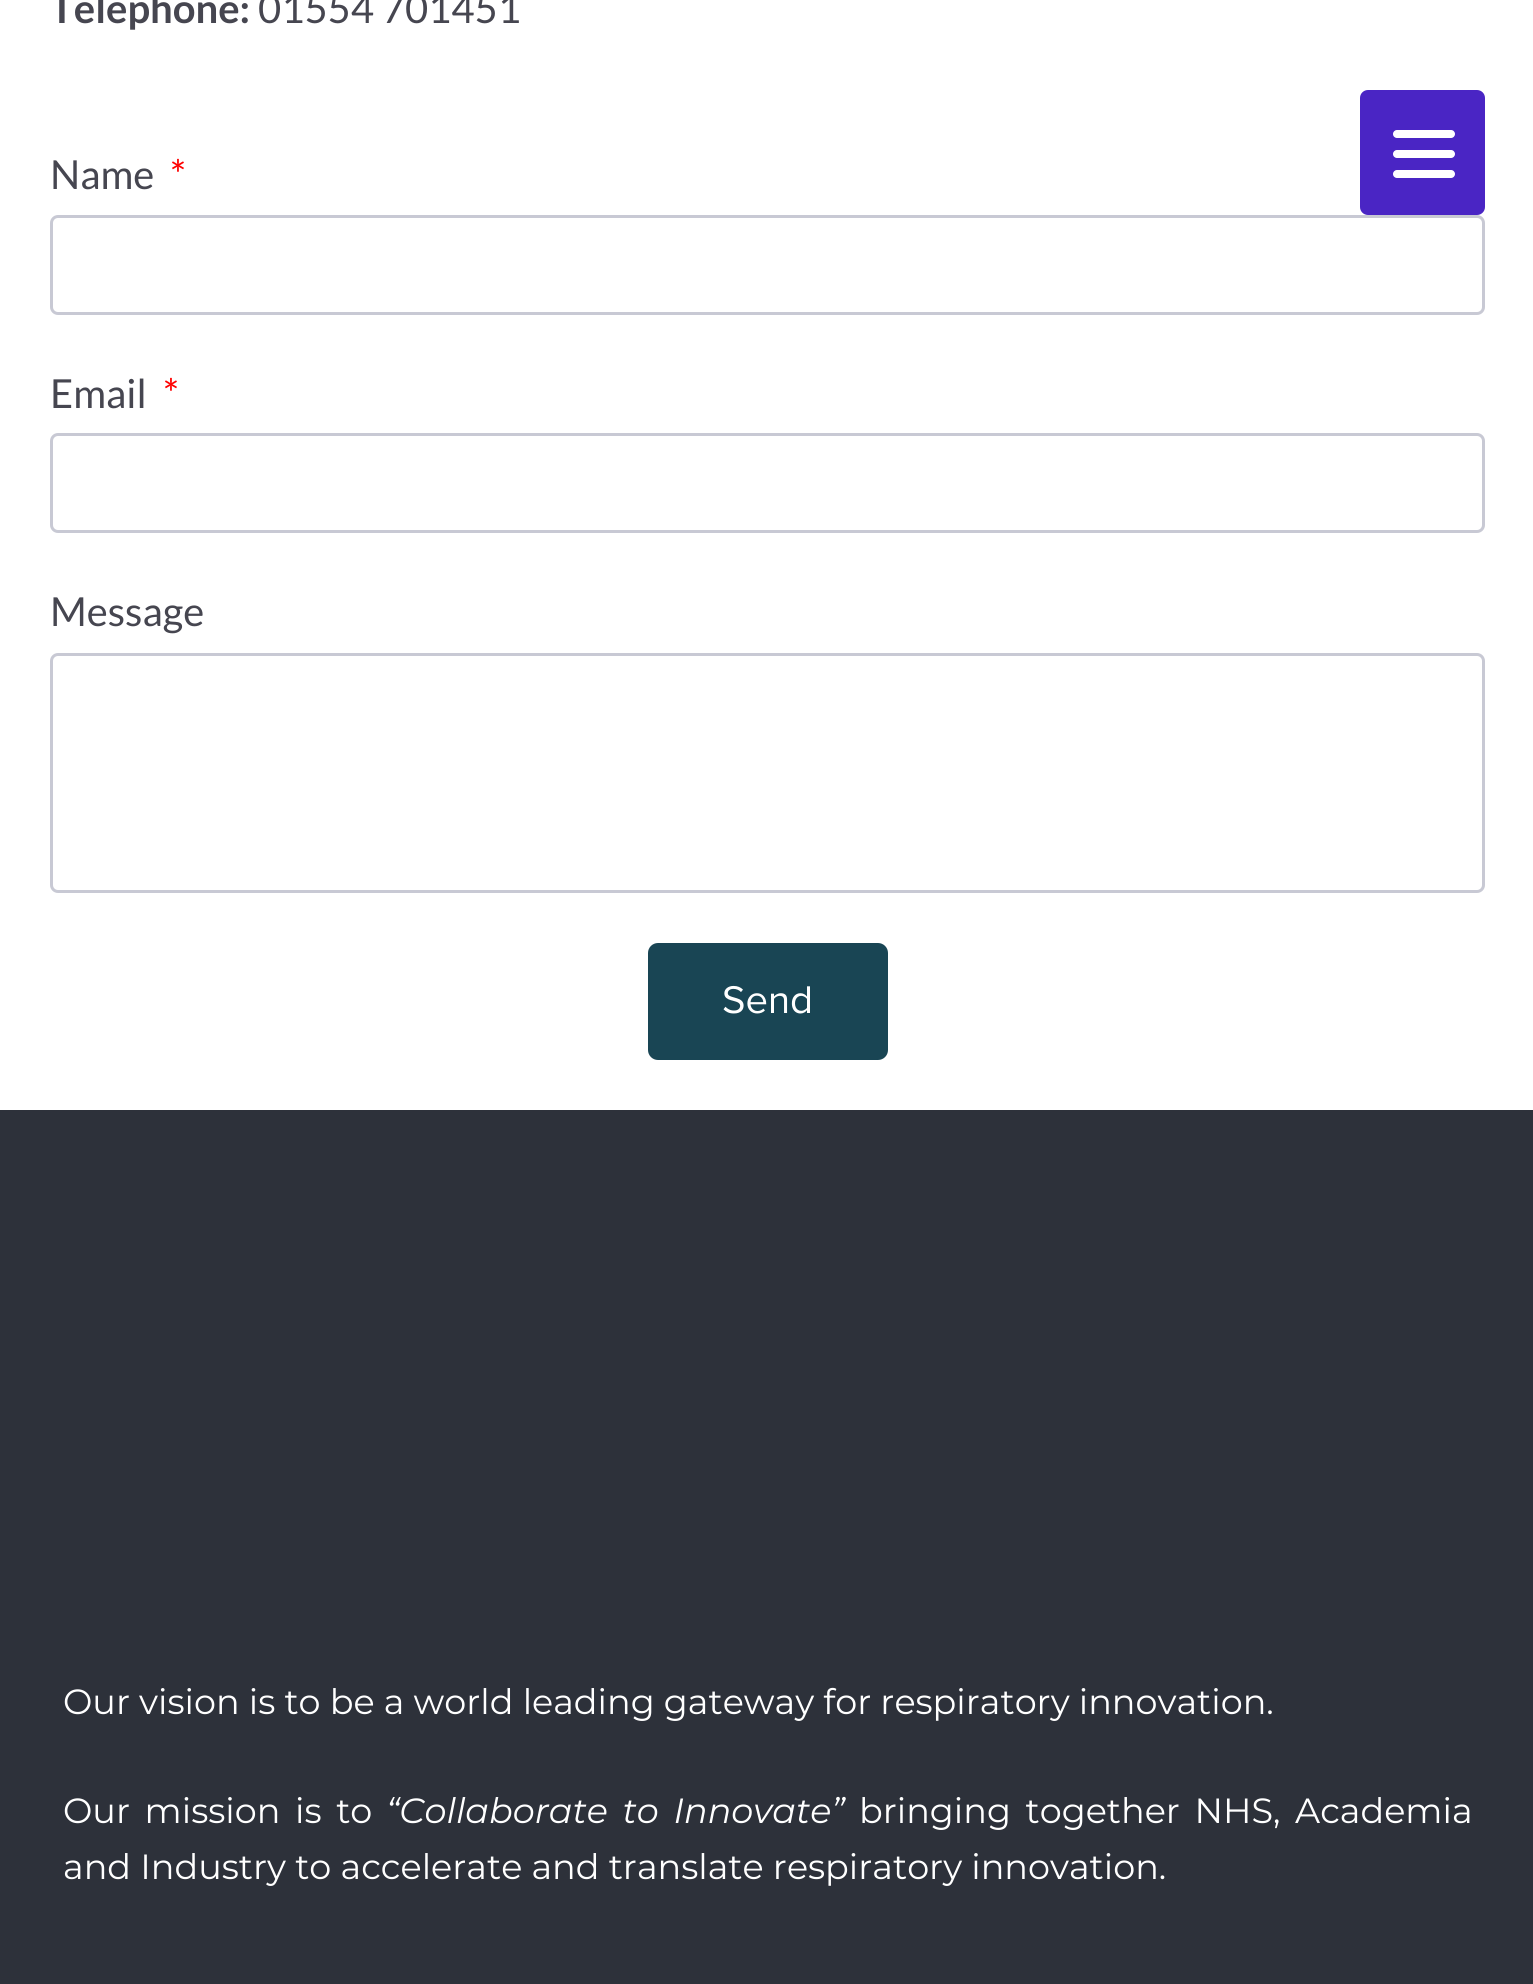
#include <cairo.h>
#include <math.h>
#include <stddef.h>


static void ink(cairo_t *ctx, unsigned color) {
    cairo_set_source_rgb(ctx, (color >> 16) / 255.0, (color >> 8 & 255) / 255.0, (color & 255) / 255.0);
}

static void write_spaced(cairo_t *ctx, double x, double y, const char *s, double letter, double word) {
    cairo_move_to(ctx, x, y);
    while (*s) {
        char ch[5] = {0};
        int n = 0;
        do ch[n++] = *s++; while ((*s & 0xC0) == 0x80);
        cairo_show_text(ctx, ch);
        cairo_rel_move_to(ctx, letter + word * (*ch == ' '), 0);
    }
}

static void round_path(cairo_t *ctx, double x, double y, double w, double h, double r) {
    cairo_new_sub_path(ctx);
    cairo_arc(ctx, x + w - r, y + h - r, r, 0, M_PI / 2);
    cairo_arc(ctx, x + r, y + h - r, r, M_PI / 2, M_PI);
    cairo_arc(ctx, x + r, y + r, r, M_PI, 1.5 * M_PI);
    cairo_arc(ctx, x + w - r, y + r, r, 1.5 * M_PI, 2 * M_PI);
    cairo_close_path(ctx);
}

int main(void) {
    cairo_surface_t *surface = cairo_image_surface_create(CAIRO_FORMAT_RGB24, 1533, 1984);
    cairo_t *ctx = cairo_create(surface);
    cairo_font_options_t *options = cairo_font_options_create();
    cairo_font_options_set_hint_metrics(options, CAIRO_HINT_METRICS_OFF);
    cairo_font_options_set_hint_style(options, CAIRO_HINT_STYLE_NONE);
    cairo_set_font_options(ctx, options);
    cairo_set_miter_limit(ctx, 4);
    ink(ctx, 0xFFFFFF);
    cairo_paint(ctx);
    cairo_select_font_face(ctx, "Lato", CAIRO_FONT_SLANT_NORMAL, CAIRO_FONT_WEIGHT_BOLD);
    cairo_set_font_size(ctx, 40);
    ink(ctx, 0x464650);
    cairo_move_to(ctx, 50, 23);
    cairo_show_text(ctx, "Telephone:");
    cairo_select_font_face(ctx, "Lato", CAIRO_FONT_SLANT_NORMAL, CAIRO_FONT_WEIGHT_NORMAL);
    cairo_move_to(ctx, 258, 23);
    cairo_show_text(ctx, "01554 701451");
    cairo_move_to(ctx, 50, 189);
    cairo_show_text(ctx, "Name");
    ink(ctx, 0xFF0000);
    cairo_move_to(ctx, 170, 189);
    cairo_show_text(ctx, "*");
    round_path(ctx, 51.5, 216.5, 1432, 97, 6.5);
    ink(ctx, 0xC8C9D4);
    cairo_set_line_width(ctx, 3);
    cairo_stroke(ctx);
    ink(ctx, 0x464650);
    cairo_move_to(ctx, 50, 408);
    cairo_show_text(ctx, "Email");
    ink(ctx, 0xFF0000);
    cairo_move_to(ctx, 163, 408);
    cairo_show_text(ctx, "*");
    round_path(ctx, 51.5, 434.5, 1432, 97, 6.5);
    ink(ctx, 0xC8C9D4);
    cairo_stroke(ctx);
    ink(ctx, 0x464650);
    cairo_move_to(ctx, 50, 626);
    cairo_show_text(ctx, "Message");
    round_path(ctx, 51.5, 654.5, 1432, 237, 6.5);
    ink(ctx, 0xC8C9D4);
    cairo_stroke(ctx);
    ink(ctx, 0x194554);
    round_path(ctx, 648, 943, 240, 117, 10);
    cairo_fill(ctx);
    cairo_select_font_face(ctx, "Proxima Nova", CAIRO_FONT_SLANT_NORMAL, CAIRO_FONT_WEIGHT_NORMAL);
    ink(ctx, 0xFFFFFF);
    cairo_move_to(ctx, 722, 1013);
    cairo_show_text(ctx, "Send");
    ink(ctx, 0x4A25C4);
    round_path(ctx, 1360, 90, 125, 125, 8);
    cairo_fill(ctx);
    ink(ctx, 0xFFFFFF);
    round_path(ctx, 1393, 150, 62, 8, 4);
    cairo_fill(ctx);
    round_path(ctx, 1393, 130, 62, 8, 4);
    cairo_fill(ctx);
    round_path(ctx, 1393, 170, 62, 8, 4);
    cairo_fill(ctx);
    ink(ctx, 0x2D313A);
    cairo_rectangle(ctx, 0, 1110, 1533, 874);
    cairo_fill(ctx);
    cairo_select_font_face(ctx, "Montserrat", CAIRO_FONT_SLANT_NORMAL, CAIRO_FONT_WEIGHT_NORMAL);
    cairo_set_font_size(ctx, 35);
    ink(ctx, 0xFFFFFF);
    cairo_move_to(ctx, 63, 1714);
    cairo_show_text(ctx, "Our vision is to be a world leading gateway for respiratory innovation.");
    write_spaced(ctx, 63, 1823, "Our mission is to", 0, 5.5);
    cairo_select_font_face(ctx, "Montserrat", CAIRO_FONT_SLANT_ITALIC, CAIRO_FONT_WEIGHT_NORMAL);
    write_spaced(ctx, 386, 1823, "“Collaborate to Innovate”", 0, 5.5);
    cairo_select_font_face(ctx, "Montserrat", CAIRO_FONT_SLANT_NORMAL, CAIRO_FONT_WEIGHT_NORMAL);
    write_spaced(ctx, 859, 1823, "bringing together NHS, Academia", 0, 5.5);
    cairo_move_to(ctx, 63, 1879);
    cairo_show_text(ctx, "and Industry to accelerate and translate respiratory innovation.");
    cairo_surface_write_to_png(surface, "image.png");
    cairo_font_options_destroy(options);
    cairo_destroy(ctx);
    cairo_surface_destroy(surface);
    return 0;
}
